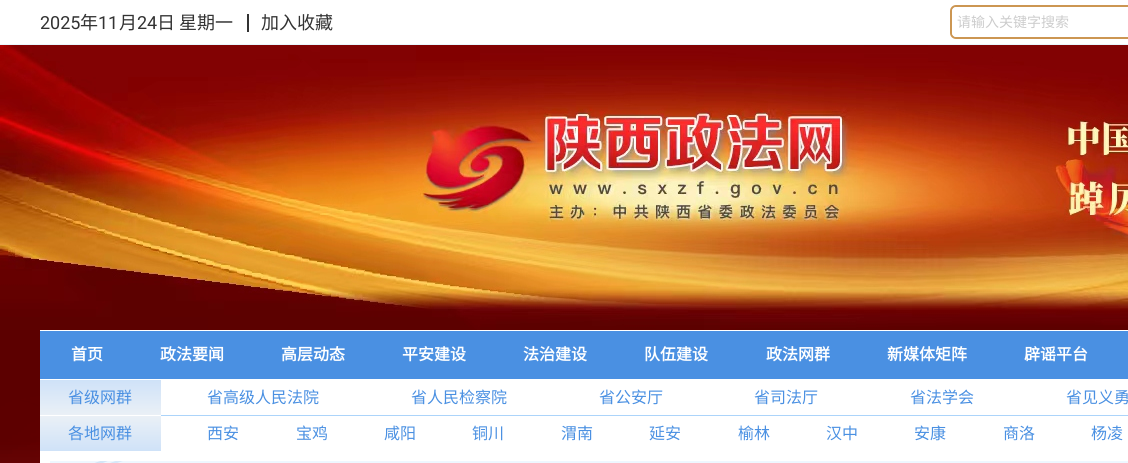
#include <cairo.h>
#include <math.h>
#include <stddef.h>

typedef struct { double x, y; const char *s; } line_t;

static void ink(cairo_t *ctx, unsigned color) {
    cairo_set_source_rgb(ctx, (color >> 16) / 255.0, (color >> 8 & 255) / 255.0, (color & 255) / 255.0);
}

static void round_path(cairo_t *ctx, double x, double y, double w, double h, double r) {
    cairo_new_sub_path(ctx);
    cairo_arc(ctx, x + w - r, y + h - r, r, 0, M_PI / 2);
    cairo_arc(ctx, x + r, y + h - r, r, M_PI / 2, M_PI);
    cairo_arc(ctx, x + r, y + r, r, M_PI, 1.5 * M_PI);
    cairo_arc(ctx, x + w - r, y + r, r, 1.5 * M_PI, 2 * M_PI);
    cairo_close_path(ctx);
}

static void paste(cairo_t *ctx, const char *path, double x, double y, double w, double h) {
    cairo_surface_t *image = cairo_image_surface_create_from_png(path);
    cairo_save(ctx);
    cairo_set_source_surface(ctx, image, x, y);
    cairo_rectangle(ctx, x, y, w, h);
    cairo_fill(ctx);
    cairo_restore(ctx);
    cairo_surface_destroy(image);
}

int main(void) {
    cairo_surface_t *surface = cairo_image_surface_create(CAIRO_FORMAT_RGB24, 1128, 463);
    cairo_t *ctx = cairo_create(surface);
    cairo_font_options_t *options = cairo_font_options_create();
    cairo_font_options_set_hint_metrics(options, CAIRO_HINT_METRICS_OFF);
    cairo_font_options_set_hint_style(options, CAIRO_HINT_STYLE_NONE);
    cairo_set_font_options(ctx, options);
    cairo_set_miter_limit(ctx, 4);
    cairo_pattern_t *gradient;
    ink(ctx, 0xE7F7FE);
    cairo_paint(ctx);
    paste(ctx, "media/1.png", 0, 45, 1128, 285);
    ink(ctx, 0xFFFFFF);
    cairo_rectangle(ctx, 0, 0, 1128, 44);
    cairo_fill(ctx);
    cairo_select_font_face(ctx, "Roboto", CAIRO_FONT_SLANT_NORMAL, CAIRO_FONT_WEIGHT_NORMAL);
    cairo_set_font_size(ctx, 18);
    ink(ctx, 0x333333);
    cairo_move_to(ctx, 40, 29);
    cairo_show_text(ctx, "2025");
    cairo_select_font_face(ctx, "Noto Sans CJK SC", CAIRO_FONT_SLANT_NORMAL, CAIRO_FONT_WEIGHT_NORMAL);
    cairo_move_to(ctx, 80, 29);
    cairo_show_text(ctx, "年");
    cairo_select_font_face(ctx, "Roboto", CAIRO_FONT_SLANT_NORMAL, CAIRO_FONT_WEIGHT_NORMAL);
    cairo_move_to(ctx, 98, 29);
    cairo_show_text(ctx, "11");
    cairo_select_font_face(ctx, "Noto Sans CJK SC", CAIRO_FONT_SLANT_NORMAL, CAIRO_FONT_WEIGHT_NORMAL);
    cairo_move_to(ctx, 119, 29);
    cairo_show_text(ctx, "月");
    cairo_select_font_face(ctx, "Roboto", CAIRO_FONT_SLANT_NORMAL, CAIRO_FONT_WEIGHT_NORMAL);
    cairo_move_to(ctx, 137, 29);
    cairo_show_text(ctx, "24");
    cairo_select_font_face(ctx, "Noto Sans CJK SC", CAIRO_FONT_SLANT_NORMAL, CAIRO_FONT_WEIGHT_NORMAL);
    cairo_move_to(ctx, 157, 29);
    cairo_show_text(ctx, "日 星期一");
    cairo_rectangle(ctx, 247, 14, 2, 18);
    cairo_fill(ctx);
    cairo_move_to(ctx, 261, 29);
    cairo_show_text(ctx, "加入收藏");
    round_path(ctx, 951, 6, 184, 32, 5);
    ink(ctx, 0xCC9652);
    cairo_stroke(ctx);
    ink(ctx, 0xFFFFFF);
    cairo_new_path(ctx);
    cairo_move_to(ctx, 957, 7);
    cairo_line_to(ctx, 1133, 7);
    cairo_line_to(ctx, 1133, 37);
    cairo_line_to(ctx, 957, 37);
    cairo_curve_to(ctx, 954, 37, 952, 35, 952, 32);
    cairo_line_to(ctx, 952, 12);
    cairo_curve_to(ctx, 952, 9, 954, 7, 957, 7);
    cairo_close_path(ctx);
    cairo_fill(ctx);
    cairo_set_font_size(ctx, 14);
    ink(ctx, 0xCCCCCC);
    cairo_move_to(ctx, 957, 27);
    cairo_show_text(ctx, "请输入关键字搜索");
    paste(ctx, "media/2.png", 0, 330, 40, 133);
    ink(ctx, 0xFFFFFF);
    cairo_rectangle(ctx, 40, 330, 1088, 131);
    cairo_fill(ctx);
    ink(ctx, 0x4A90E2);
    cairo_rectangle(ctx, 40, 331, 1088, 48);
    cairo_fill(ctx);
    cairo_select_font_face(ctx, "Noto Sans CJK SC", CAIRO_FONT_SLANT_NORMAL, CAIRO_FONT_WEIGHT_BOLD);
    cairo_set_font_size(ctx, 16);
    ink(ctx, 0xFFFFFF);
    {
        static const line_t items[] = {
            {71, 360, "首页"},
            {160, 360, "政法要闻"},
            {281, 360, "高层动态"},
            {402, 360, "平安建设"},
            {523, 360, "法治建设"},
            {644, 360, "队伍建设"},
            {766, 360, "政法网群"},
            {887, 360, "新媒体矩阵"},
            {1024, 360, "辟谣平台"},
        };
        for (size_t i = 0; i < sizeof items / sizeof *items; i++) {
            cairo_move_to(ctx, items[i].x, items[i].y);
            cairo_show_text(ctx, items[i].s);
        }
    }
    gradient = cairo_pattern_create_linear(101, 380, 101, 415);
    cairo_pattern_add_color_stop_rgba(gradient, 0, 0.812, 0.886, 0.973, 1);
    cairo_pattern_add_color_stop_rgba(gradient, 1, 0.918, 0.941, 0.965, 1);
    cairo_set_source(ctx, gradient);
    cairo_pattern_destroy(gradient);
    cairo_rectangle(ctx, 40, 380, 121, 35);
    cairo_fill(ctx);
    cairo_select_font_face(ctx, "Noto Sans CJK SC", CAIRO_FONT_SLANT_NORMAL, CAIRO_FONT_WEIGHT_NORMAL);
    ink(ctx, 0x4A90E2);
    cairo_move_to(ctx, 68, 403);
    cairo_show_text(ctx, "省级网群");
    ink(ctx, 0xACD4FA);
    cairo_rectangle(ctx, 161, 415, 967, 1);
    cairo_fill(ctx);
    ink(ctx, 0x4A90E2);
    {
        static const line_t items[] = {
            {207, 403, "省高级人民法院"},
            {411, 403, "省人民检察院"},
            {599, 403, "省公安厅"},
            {754, 403, "省司法厅"},
            {910, 403, "省法学会"},
            {1066, 403, "省见义勇"},
        };
        for (size_t i = 0; i < sizeof items / sizeof *items; i++) {
            cairo_move_to(ctx, items[i].x, items[i].y);
            cairo_show_text(ctx, items[i].s);
        }
    }
    gradient = cairo_pattern_create_linear(101, 416, 101, 451);
    cairo_pattern_add_color_stop_rgba(gradient, 0, 0.918, 0.941, 0.965, 1);
    cairo_pattern_add_color_stop_rgba(gradient, 1, 0.812, 0.886, 0.973, 1);
    cairo_set_source(ctx, gradient);
    cairo_pattern_destroy(gradient);
    cairo_rectangle(ctx, 40, 416, 121, 35);
    cairo_fill(ctx);
    ink(ctx, 0x4A90E2);
    {
        static const line_t items[] = {
            {68, 439, "各地网群"},
            {207, 439, "西安"},
            {296, 439, "宝鸡"},
            {384, 439, "咸阳"},
            {472, 439, "铜川"},
            {561, 439, "渭南"},
            {649, 439, "延安"},
            {738, 439, "榆林"},
            {826, 439, "汉中"},
            {914, 439, "安康"},
            {1003, 439, "商洛"},
            {1091, 439, "杨凌"},
        };
        for (size_t i = 0; i < sizeof items / sizeof *items; i++) {
            cairo_move_to(ctx, items[i].x, items[i].y);
            cairo_show_text(ctx, items[i].s);
        }
    }
    ink(ctx, 0xFFFFFF);
    cairo_rectangle(ctx, 40, 461, 10, 2);
    cairo_fill(ctx);
    paste(ctx, "media/3.png", 50, 461, 1078, 2);
    cairo_surface_write_to_png(surface, "image.png");
    cairo_font_options_destroy(options);
    cairo_destroy(ctx);
    cairo_surface_destroy(surface);
    return 0;
}
